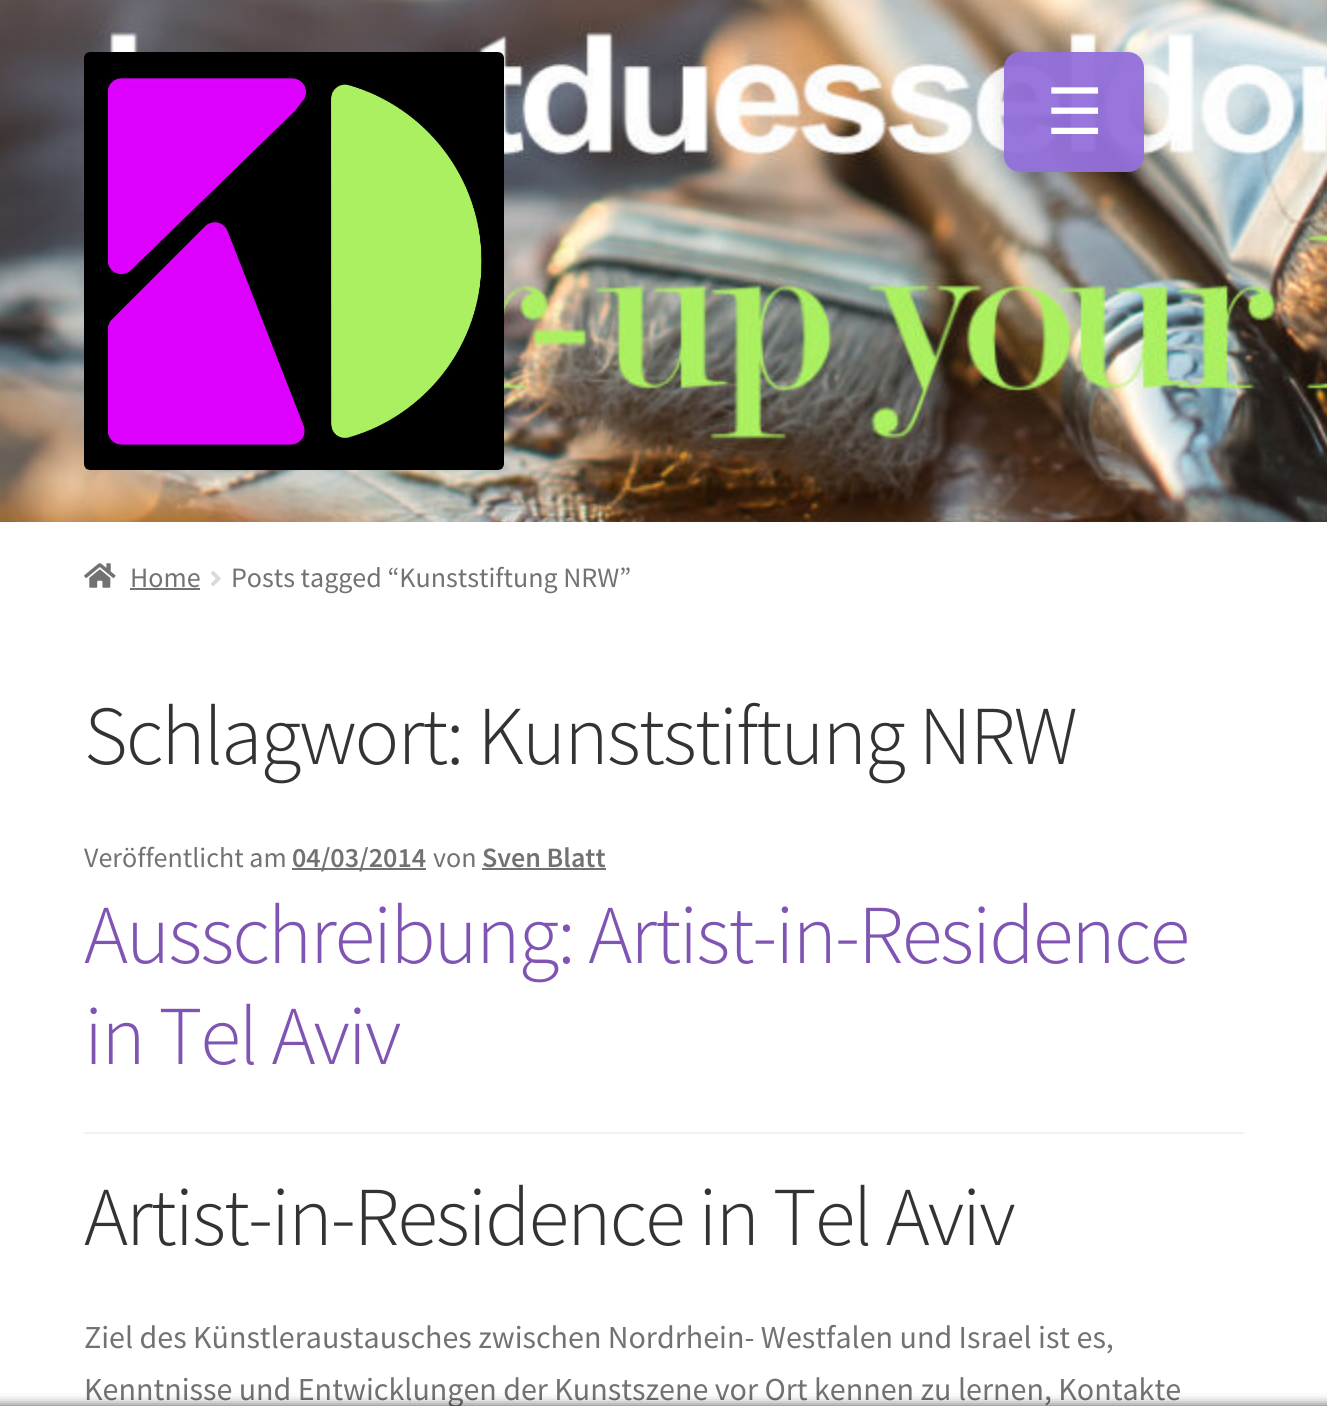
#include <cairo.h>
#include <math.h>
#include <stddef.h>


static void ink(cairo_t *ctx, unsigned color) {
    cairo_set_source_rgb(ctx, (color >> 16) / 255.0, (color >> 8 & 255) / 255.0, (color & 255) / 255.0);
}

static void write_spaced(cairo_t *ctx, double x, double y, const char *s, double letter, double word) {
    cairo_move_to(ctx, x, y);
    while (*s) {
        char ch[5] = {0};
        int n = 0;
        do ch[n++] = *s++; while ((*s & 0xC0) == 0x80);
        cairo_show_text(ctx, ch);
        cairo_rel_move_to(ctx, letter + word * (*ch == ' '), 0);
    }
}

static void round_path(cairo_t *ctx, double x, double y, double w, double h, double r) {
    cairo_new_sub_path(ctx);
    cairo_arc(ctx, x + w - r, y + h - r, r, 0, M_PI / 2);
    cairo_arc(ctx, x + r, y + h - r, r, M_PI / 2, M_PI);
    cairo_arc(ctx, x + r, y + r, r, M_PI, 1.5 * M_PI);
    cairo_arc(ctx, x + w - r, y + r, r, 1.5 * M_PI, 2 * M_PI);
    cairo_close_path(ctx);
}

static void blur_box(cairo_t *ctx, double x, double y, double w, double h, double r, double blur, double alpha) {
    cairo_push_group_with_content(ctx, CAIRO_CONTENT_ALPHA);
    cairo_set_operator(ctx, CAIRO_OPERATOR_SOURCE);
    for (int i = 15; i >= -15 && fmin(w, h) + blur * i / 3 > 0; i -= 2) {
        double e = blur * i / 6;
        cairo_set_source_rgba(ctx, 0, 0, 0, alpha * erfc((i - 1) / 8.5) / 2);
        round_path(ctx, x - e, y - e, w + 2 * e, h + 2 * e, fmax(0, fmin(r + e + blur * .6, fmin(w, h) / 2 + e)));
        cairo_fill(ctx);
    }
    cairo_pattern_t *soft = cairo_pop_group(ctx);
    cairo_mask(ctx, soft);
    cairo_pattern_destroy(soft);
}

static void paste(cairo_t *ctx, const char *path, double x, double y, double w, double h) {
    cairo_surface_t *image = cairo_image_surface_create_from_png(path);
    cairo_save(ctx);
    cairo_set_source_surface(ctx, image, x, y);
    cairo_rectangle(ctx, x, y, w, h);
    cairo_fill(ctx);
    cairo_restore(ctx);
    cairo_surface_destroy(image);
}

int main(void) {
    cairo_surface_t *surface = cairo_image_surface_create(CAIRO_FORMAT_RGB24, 1327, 1408);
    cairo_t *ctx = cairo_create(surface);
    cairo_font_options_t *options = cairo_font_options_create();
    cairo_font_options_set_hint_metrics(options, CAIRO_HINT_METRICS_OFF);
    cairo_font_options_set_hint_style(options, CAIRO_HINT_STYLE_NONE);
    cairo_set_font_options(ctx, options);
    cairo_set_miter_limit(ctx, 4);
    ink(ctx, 0xFFFFFF);
    cairo_paint(ctx);
    paste(ctx, "media/1.png", 0, 0, 1327, 522);
    paste(ctx, "media/2.png", 84, 52, 420, 418);
    cairo_save(ctx);
    cairo_set_fill_rule(ctx, CAIRO_FILL_RULE_EVEN_ODD);
    cairo_new_path(ctx);
    cairo_move_to(ctx, 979, 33);
    cairo_line_to(ctx, 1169, 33);
    cairo_line_to(ctx, 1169, 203);
    cairo_line_to(ctx, 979, 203);
    cairo_close_path(ctx);
    cairo_move_to(ctx, 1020, 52);
    cairo_line_to(ctx, 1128, 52);
    cairo_curve_to(ctx, 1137, 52, 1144, 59, 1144, 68);
    cairo_line_to(ctx, 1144, 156);
    cairo_curve_to(ctx, 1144, 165, 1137, 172, 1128, 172);
    cairo_line_to(ctx, 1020, 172);
    cairo_curve_to(ctx, 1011, 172, 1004, 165, 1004, 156);
    cairo_line_to(ctx, 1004, 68);
    cairo_curve_to(ctx, 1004, 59, 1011, 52, 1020, 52);
    cairo_close_path(ctx);
    cairo_clip(ctx);
    ink(ctx, 0x000000);
    blur_box(ctx, 1004, 58, 140, 120, 16, 8, 0.15);
    cairo_restore(ctx);
    cairo_set_source_rgba(ctx, 0.576, 0.439, 0.859, 0.95);
    round_path(ctx, 1004, 52, 140, 120, 16);
    cairo_fill(ctx);
    cairo_select_font_face(ctx, "DejaVu Sans", CAIRO_FONT_SLANT_NORMAL, CAIRO_FONT_WEIGHT_NORMAL);
    cairo_set_font_size(ctx, 64);
    ink(ctx, 0xFFFFFF);
    cairo_move_to(ctx, 1046, 134);
    cairo_show_text(ctx, "☰");
    paste(ctx, "media/3.png", 84, 563, 32, 25);
    cairo_select_font_face(ctx, "Source Sans Pro", CAIRO_FONT_SLANT_NORMAL, CAIRO_FONT_WEIGHT_NORMAL);
    cairo_set_font_size(ctx, 28);
    ink(ctx, 0x727272);
    cairo_move_to(ctx, 130, 587);
    cairo_show_text(ctx, "Home");
    cairo_rectangle(ctx, 130, 588, 70, 2);
    cairo_fill(ctx);
    paste(ctx, "media/4.png", 211, 571, 10, 16);
    cairo_move_to(ctx, 231, 587);
    cairo_show_text(ctx, "Posts tagged “Kunststiftung NRW”");
    cairo_select_font_face(ctx, "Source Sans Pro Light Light", CAIRO_FONT_SLANT_NORMAL, CAIRO_FONT_WEIGHT_NORMAL);
    cairo_set_font_size(ctx, 83.75);
    ink(ctx, 0x333333);
    write_spaced(ctx, 84, 764, "Schlagwort: Kunststiftung NRW", -2, 0);
    ink(ctx, 0xF2F2F2);
    cairo_rectangle(ctx, 84, 1132, 1160, 2);
    cairo_fill(ctx);
    cairo_select_font_face(ctx, "Source Sans Pro", CAIRO_FONT_SLANT_NORMAL, CAIRO_FONT_WEIGHT_NORMAL);
    cairo_set_font_size(ctx, 28);
    ink(ctx, 0x727272);
    cairo_move_to(ctx, 84, 867);
    cairo_show_text(ctx, "Veröffentlicht am");
    cairo_rectangle(ctx, 292, 868, 134, 2);
    cairo_fill(ctx);
    cairo_select_font_face(ctx, "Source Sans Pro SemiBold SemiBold", CAIRO_FONT_SLANT_NORMAL, CAIRO_FONT_WEIGHT_NORMAL);
    cairo_move_to(ctx, 292, 867);
    cairo_show_text(ctx, "04/03/2014");
    cairo_select_font_face(ctx, "Source Sans Pro", CAIRO_FONT_SLANT_NORMAL, CAIRO_FONT_WEIGHT_NORMAL);
    cairo_move_to(ctx, 433, 867);
    cairo_show_text(ctx, "von");
    cairo_select_font_face(ctx, "Source Sans Pro SemiBold SemiBold", CAIRO_FONT_SLANT_NORMAL, CAIRO_FONT_WEIGHT_NORMAL);
    cairo_move_to(ctx, 482, 867);
    cairo_show_text(ctx, "Sven Blatt");
    cairo_rectangle(ctx, 482, 868, 124, 2);
    cairo_fill(ctx);
    cairo_select_font_face(ctx, "Source Sans Pro Light Light", CAIRO_FONT_SLANT_NORMAL, CAIRO_FONT_WEIGHT_NORMAL);
    cairo_set_font_size(ctx, 83.75);
    ink(ctx, 0x7F54B3);
    write_spaced(ctx, 84, 963, "Ausschreibung: Artist-in-Residence", -2, 0);
    write_spaced(ctx, 84, 1064, "in Tel Aviv", -2, 0);
    ink(ctx, 0x333333);
    write_spaced(ctx, 84, 1245, "Artist-in-Residence in Tel Aviv", -2, 0);
    cairo_select_font_face(ctx, "Source Sans Pro", CAIRO_FONT_SLANT_NORMAL, CAIRO_FONT_WEIGHT_NORMAL);
    cairo_set_font_size(ctx, 32);
    ink(ctx, 0x727272);
    cairo_move_to(ctx, 84, 1348);
    cairo_show_text(ctx, "Ziel des Künstleraustausches zwischen Nordrhein- Westfalen und Israel ist es,");
    cairo_move_to(ctx, 84, 1400);
    cairo_show_text(ctx, "Kenntnisse und Entwicklungen der Kunstszene vor Ort kennen zu lernen, Kontakte");
    ink(ctx, 0x000000);
    blur_box(ctx, 0, 1406, 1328, 2, 0, 6, 0.7);
    ink(ctx, 0xFFFFFF);
    cairo_rectangle(ctx, 0, 1406, 1327, 2);
    cairo_fill(ctx);
    cairo_surface_write_to_png(surface, "image.png");
    cairo_font_options_destroy(options);
    cairo_destroy(ctx);
    cairo_surface_destroy(surface);
    return 0;
}
